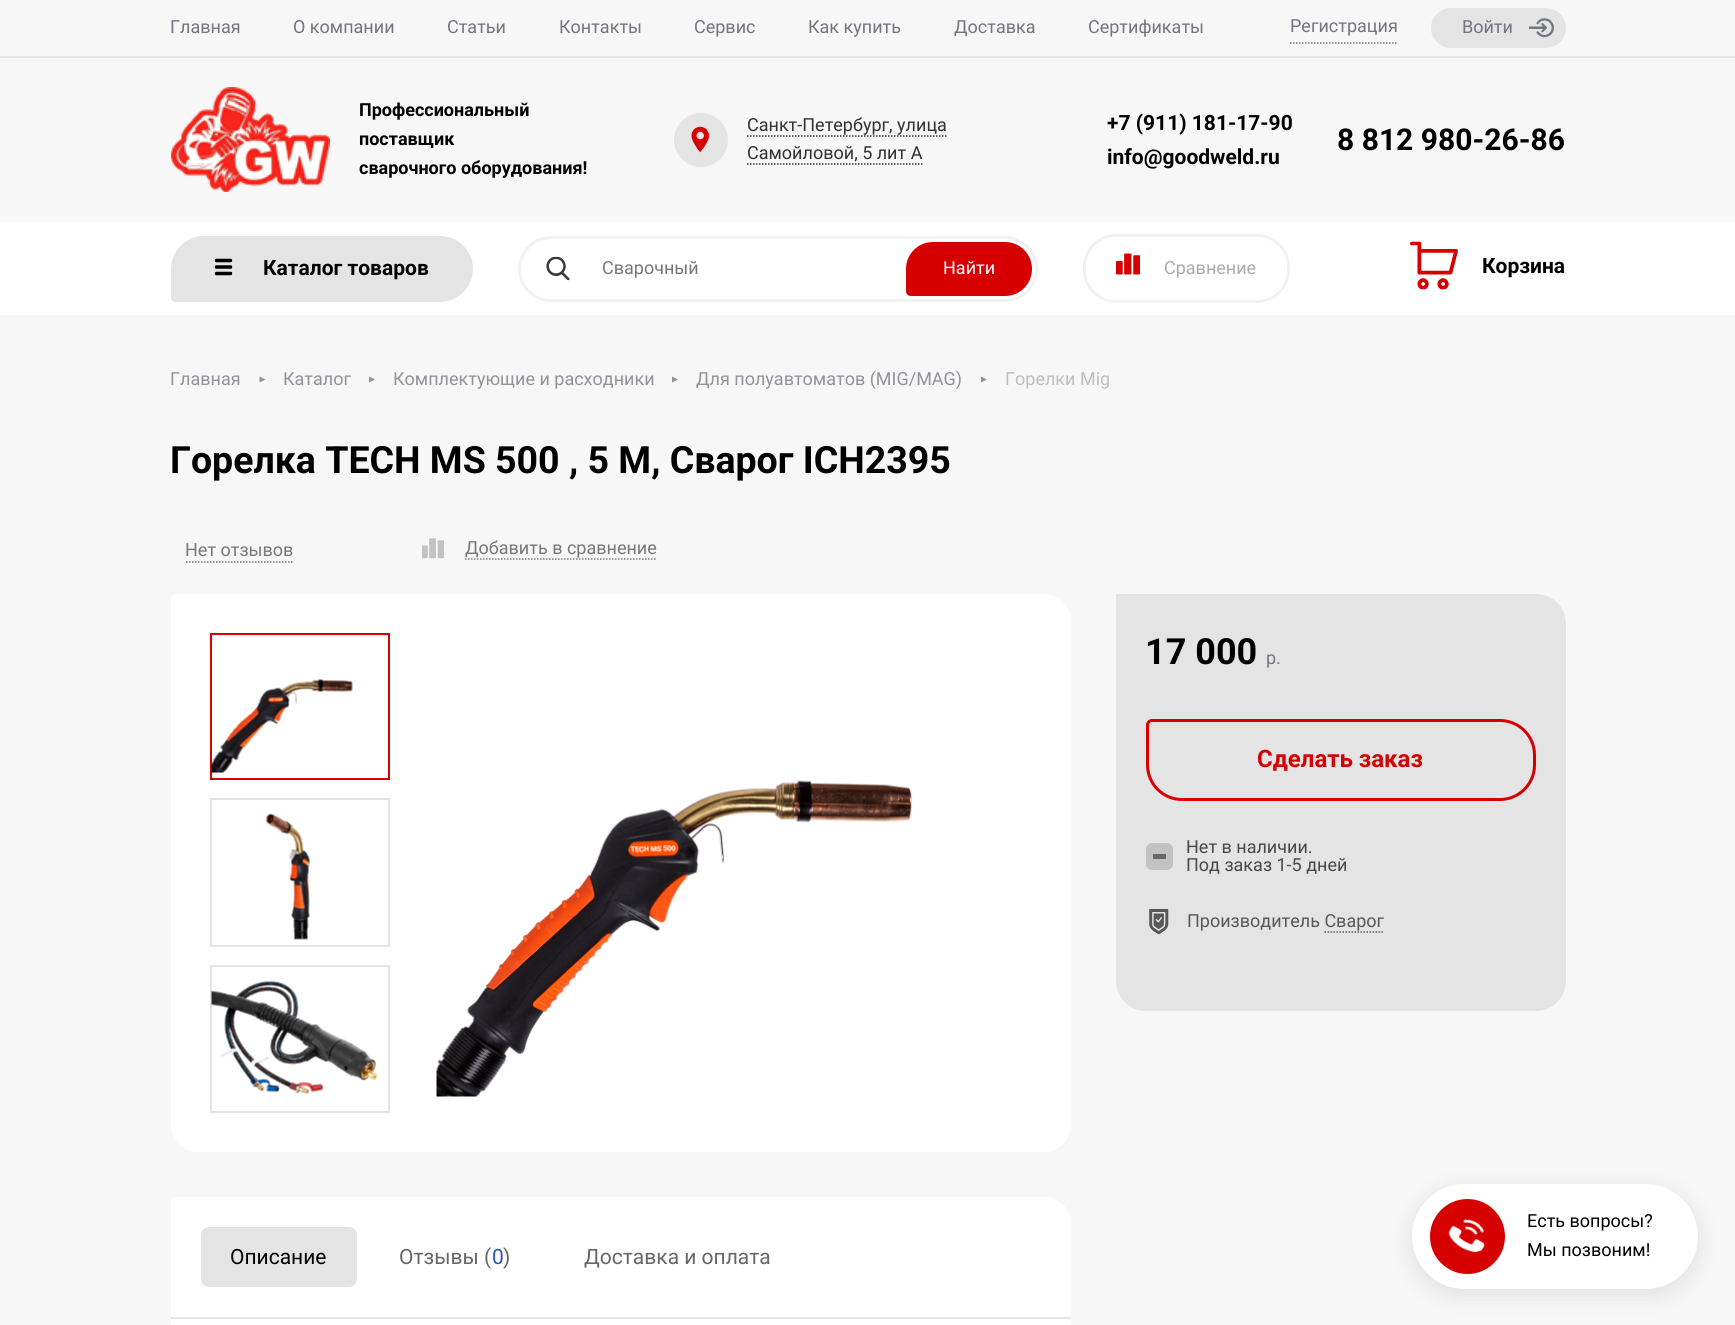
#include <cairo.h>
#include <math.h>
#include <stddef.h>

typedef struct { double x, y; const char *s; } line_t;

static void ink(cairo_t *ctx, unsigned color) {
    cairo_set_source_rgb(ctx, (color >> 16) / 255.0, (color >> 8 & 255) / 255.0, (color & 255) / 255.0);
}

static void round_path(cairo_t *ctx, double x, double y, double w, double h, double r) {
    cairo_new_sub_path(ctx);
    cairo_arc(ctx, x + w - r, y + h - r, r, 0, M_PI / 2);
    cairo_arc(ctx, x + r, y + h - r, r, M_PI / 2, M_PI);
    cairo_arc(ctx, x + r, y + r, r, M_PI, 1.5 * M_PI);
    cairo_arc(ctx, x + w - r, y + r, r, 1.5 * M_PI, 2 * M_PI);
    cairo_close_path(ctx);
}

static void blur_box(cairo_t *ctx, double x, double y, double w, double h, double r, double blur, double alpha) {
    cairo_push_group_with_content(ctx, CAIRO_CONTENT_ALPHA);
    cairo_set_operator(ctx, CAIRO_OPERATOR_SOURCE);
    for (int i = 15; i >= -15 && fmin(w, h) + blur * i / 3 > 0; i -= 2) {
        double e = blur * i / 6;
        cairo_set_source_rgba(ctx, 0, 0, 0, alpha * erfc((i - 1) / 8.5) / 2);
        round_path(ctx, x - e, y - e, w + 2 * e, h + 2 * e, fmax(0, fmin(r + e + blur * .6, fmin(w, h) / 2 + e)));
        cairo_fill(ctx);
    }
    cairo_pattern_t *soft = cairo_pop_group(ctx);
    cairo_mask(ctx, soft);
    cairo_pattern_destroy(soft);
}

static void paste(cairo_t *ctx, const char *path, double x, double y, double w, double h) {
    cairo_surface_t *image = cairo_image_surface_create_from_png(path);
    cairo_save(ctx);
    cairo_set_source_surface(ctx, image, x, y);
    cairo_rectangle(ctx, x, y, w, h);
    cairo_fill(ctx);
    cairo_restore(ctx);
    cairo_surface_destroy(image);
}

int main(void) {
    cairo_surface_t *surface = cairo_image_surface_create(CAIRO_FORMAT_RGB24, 1735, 1325);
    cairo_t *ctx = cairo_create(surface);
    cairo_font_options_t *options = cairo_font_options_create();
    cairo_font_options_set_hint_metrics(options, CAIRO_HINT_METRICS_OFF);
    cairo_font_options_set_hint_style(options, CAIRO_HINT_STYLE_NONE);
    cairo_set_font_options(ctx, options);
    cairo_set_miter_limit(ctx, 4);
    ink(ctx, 0xF7F7F7);
    cairo_paint(ctx);
    ink(ctx, 0xE6E6E6);
    cairo_rectangle(ctx, 0, 56, 1735, 2);
    cairo_fill(ctx);
    cairo_select_font_face(ctx, "Roboto", CAIRO_FONT_SLANT_NORMAL, CAIRO_FONT_WEIGHT_NORMAL);
    cairo_set_font_size(ctx, 18);
    ink(ctx, 0x73757F);
    {
        static const line_t items[] = {
            {170, 33, "Главная"},
            {293, 33, "О компании"},
            {447, 33, "Статьи"},
            {559, 33, "Контакты"},
            {694, 33, "Сервис"},
            {808, 33, "Как купить"},
            {954, 33, "Доставка"},
            {1088, 33, "Сертификаты"},
        };
        for (size_t i = 0; i < sizeof items / sizeof *items; i++) {
            cairo_move_to(ctx, items[i].x, items[i].y);
            cairo_show_text(ctx, items[i].s);
        }
    }
    cairo_new_path(ctx);
    cairo_move_to(ctx, 1290, 43);
    cairo_line_to(ctx, 1398, 43);
    cairo_set_line_width(ctx, 1.5);
    cairo_set_dash(ctx, (double[]){1.5, 1.5}, 2, 0);
    cairo_stroke(ctx);
    cairo_move_to(ctx, 1290, 32);
    cairo_show_text(ctx, "Регистрация");
    ink(ctx, 0xE4E4E4);
    round_path(ctx, 1431, 8, 135, 40, 20);
    cairo_fill(ctx);
    ink(ctx, 0x73757F);
    cairo_move_to(ctx, 1462, 33);
    cairo_show_text(ctx, "Войти");
    paste(ctx, "media/1.png", 1528, 18, 26, 20);
    paste(ctx, "media/2.png", 171, 87, 159, 105);
    cairo_select_font_face(ctx, "Roboto", CAIRO_FONT_SLANT_NORMAL, CAIRO_FONT_WEIGHT_BOLD);
    ink(ctx, 0x000000);
    {
        static const line_t items[] = {
            {359, 116, "Профессиональный"},
            {359, 145, "поставщик"},
            {359, 174, "сварочного оборудования!"},
        };
        for (size_t i = 0; i < sizeof items / sizeof *items; i++) {
            cairo_move_to(ctx, items[i].x, items[i].y);
            cairo_show_text(ctx, items[i].s);
        }
    }
    ink(ctx, 0xE4E4E4);
    cairo_new_path(ctx);
    cairo_arc(ctx, 701, 140, 27, 0, 2 * M_PI);
    cairo_fill(ctx);
    paste(ctx, "media/3.png", 691, 126, 19, 27);
    cairo_select_font_face(ctx, "Roboto", CAIRO_FONT_SLANT_NORMAL, CAIRO_FONT_WEIGHT_NORMAL);
    ink(ctx, 0x323232);
    cairo_move_to(ctx, 747, 131);
    cairo_show_text(ctx, "Санкт-Петербург, улица");
    cairo_new_path(ctx);
    cairo_move_to(ctx, 747, 136);
    cairo_line_to(ctx, 946.5, 136);
    cairo_stroke(ctx);
    cairo_move_to(ctx, 747, 159);
    cairo_show_text(ctx, "Самойловой, 5 лит А");
    cairo_new_path(ctx);
    cairo_move_to(ctx, 747, 164);
    cairo_line_to(ctx, 922.5, 164);
    cairo_stroke(ctx);
    cairo_select_font_face(ctx, "Roboto", CAIRO_FONT_SLANT_NORMAL, CAIRO_FONT_WEIGHT_BOLD);
    cairo_set_font_size(ctx, 21);
    ink(ctx, 0x000000);
    cairo_move_to(ctx, 1107, 130);
    cairo_show_text(ctx, "+7 (911) 181-17-90");
    cairo_move_to(ctx, 1107, 164);
    cairo_show_text(ctx, "info@goodweld.ru");
    cairo_set_font_size(ctx, 30);
    cairo_move_to(ctx, 1337, 150);
    cairo_show_text(ctx, "8 812 980-26-86");
    ink(ctx, 0xFFFFFF);
    cairo_rectangle(ctx, 0, 222, 1735, 93);
    cairo_fill(ctx);
    ink(ctx, 0xE4E4E4);
    cairo_new_path(ctx);
    cairo_move_to(ctx, 204, 236);
    cairo_line_to(ctx, 440, 236);
    cairo_curve_to(ctx, 458, 236, 473, 251, 473, 269);
    cairo_curve_to(ctx, 473, 287, 458, 302, 440, 302);
    cairo_line_to(ctx, 176, 302);
    cairo_curve_to(ctx, 173, 302, 171, 300, 171, 297);
    cairo_line_to(ctx, 171, 269);
    cairo_curve_to(ctx, 171, 251, 186, 236, 204, 236);
    cairo_close_path(ctx);
    cairo_fill(ctx);
    paste(ctx, "media/4.png", 214, 258, 19, 18);
    cairo_set_font_size(ctx, 21);
    ink(ctx, 0x000000);
    cairo_move_to(ctx, 263, 275);
    cairo_show_text(ctx, "Каталог товаров");
    round_path(ctx, 519.5, 237.5, 517, 63, 31.5);
    ink(ctx, 0xF2F2F2);
    cairo_set_line_width(ctx, 3);
    cairo_set_dash(ctx, NULL, 0, 0);
    cairo_stroke(ctx);
    paste(ctx, "media/5.png", 546, 256, 24, 25);
    cairo_select_font_face(ctx, "Roboto", CAIRO_FONT_SLANT_NORMAL, CAIRO_FONT_WEIGHT_NORMAL);
    cairo_set_font_size(ctx, 18);
    ink(ctx, 0x777777);
    cairo_move_to(ctx, 602, 274);
    cairo_show_text(ctx, "Сварочный");
    ink(ctx, 0xD60000);
    cairo_new_path(ctx);
    cairo_move_to(ctx, 933, 242);
    cairo_line_to(ctx, 1005, 242);
    cairo_curve_to(ctx, 1020, 242, 1032, 254, 1032, 269);
    cairo_curve_to(ctx, 1032, 284, 1020, 296, 1005, 296);
    cairo_line_to(ctx, 911, 296);
    cairo_curve_to(ctx, 908, 296, 906, 294, 906, 291);
    cairo_line_to(ctx, 906, 269);
    cairo_curve_to(ctx, 906, 254, 918, 242, 933, 242);
    cairo_close_path(ctx);
    cairo_fill(ctx);
    ink(ctx, 0xFFFFFF);
    cairo_move_to(ctx, 943, 274);
    cairo_show_text(ctx, "Найти");
    round_path(ctx, 1084.5, 235.5, 204, 66, 31.5);
    ink(ctx, 0xF2F2F2);
    cairo_stroke(ctx);
    paste(ctx, "media/6.png", 1116, 253, 24, 22);
    ink(ctx, 0xA9ABB0);
    cairo_move_to(ctx, 1164, 274);
    cairo_show_text(ctx, "Сравнение");
    paste(ctx, "media/7.png", 1410, 241, 48, 49);
    cairo_select_font_face(ctx, "Roboto", CAIRO_FONT_SLANT_NORMAL, CAIRO_FONT_WEIGHT_BOLD);
    cairo_set_font_size(ctx, 21);
    ink(ctx, 0x000000);
    cairo_move_to(ctx, 1482, 273);
    cairo_show_text(ctx, "Корзина");
    cairo_select_font_face(ctx, "Roboto", CAIRO_FONT_SLANT_NORMAL, CAIRO_FONT_WEIGHT_NORMAL);
    cairo_set_font_size(ctx, 18);
    ink(ctx, 0x90939A);
    cairo_move_to(ctx, 170, 385);
    cairo_show_text(ctx, "Главная");
    cairo_new_path(ctx);
    cairo_move_to(ctx, 259.5, 382.5);
    cairo_line_to(ctx, 259.5, 376.5);
    cairo_line_to(ctx, 265.5, 379.5);
    cairo_close_path(ctx);
    cairo_fill(ctx);
    cairo_move_to(ctx, 283, 385);
    cairo_show_text(ctx, "Каталог");
    cairo_new_path(ctx);
    cairo_move_to(ctx, 369, 382.5);
    cairo_line_to(ctx, 369, 376.5);
    cairo_line_to(ctx, 375, 379.5);
    cairo_close_path(ctx);
    cairo_fill(ctx);
    cairo_move_to(ctx, 393, 385);
    cairo_show_text(ctx, "Комплектующие и расходники");
    cairo_new_path(ctx);
    cairo_move_to(ctx, 672, 382.5);
    cairo_line_to(ctx, 672, 376.5);
    cairo_line_to(ctx, 678, 379.5);
    cairo_close_path(ctx);
    cairo_fill(ctx);
    cairo_move_to(ctx, 696, 385);
    cairo_show_text(ctx, "Для полуавтоматов (MIG/MAG)");
    cairo_new_path(ctx);
    cairo_move_to(ctx, 981, 382.5);
    cairo_line_to(ctx, 981, 376.5);
    cairo_line_to(ctx, 987, 379.5);
    cairo_close_path(ctx);
    cairo_fill(ctx);
    ink(ctx, 0xBCBEC4);
    cairo_move_to(ctx, 1005, 385);
    cairo_show_text(ctx, "Горелки Mig");
    cairo_select_font_face(ctx, "Roboto", CAIRO_FONT_SLANT_NORMAL, CAIRO_FONT_WEIGHT_BOLD);
    cairo_set_font_size(ctx, 37.5);
    ink(ctx, 0x000000);
    cairo_move_to(ctx, 170, 473);
    cairo_show_text(ctx, "Горелка TECH MS 500 , 5 М, Сварог ICH2395");
    cairo_select_font_face(ctx, "Roboto", CAIRO_FONT_SLANT_NORMAL, CAIRO_FONT_WEIGHT_NORMAL);
    cairo_set_font_size(ctx, 18);
    ink(ctx, 0x777777);
    cairo_move_to(ctx, 185, 556);
    cairo_show_text(ctx, "Нет отзывов");
    cairo_new_path(ctx);
    cairo_move_to(ctx, 186, 562);
    cairo_line_to(ctx, 294, 562);
    cairo_set_line_width(ctx, 1.5);
    cairo_set_dash(ctx, (double[]){1.5, 1.5}, 2, 0);
    cairo_stroke(ctx);
    paste(ctx, "media/8.png", 421, 538, 23, 21);
    cairo_new_path(ctx);
    cairo_move_to(ctx, 465, 559);
    cairo_line_to(ctx, 657, 559);
    cairo_stroke(ctx);
    cairo_move_to(ctx, 465, 554);
    cairo_show_text(ctx, "Добавить в сравнение");
    ink(ctx, 0xFFFFFF);
    cairo_new_path(ctx);
    cairo_move_to(ctx, 176, 594);
    cairo_line_to(ctx, 1044, 594);
    cairo_curve_to(ctx, 1059, 594, 1071, 606, 1071, 621);
    cairo_line_to(ctx, 1071, 1125);
    cairo_curve_to(ctx, 1071, 1140, 1059, 1152, 1044, 1152);
    cairo_line_to(ctx, 198, 1152);
    cairo_curve_to(ctx, 183, 1152, 171, 1140, 171, 1125);
    cairo_line_to(ctx, 171, 599);
    cairo_curve_to(ctx, 171, 596, 173, 594, 176, 594);
    cairo_close_path(ctx);
    cairo_fill(ctx);
    cairo_rectangle(ctx, 211, 634, 178, 145);
    ink(ctx, 0xD60000);
    cairo_set_line_width(ctx, 2);
    cairo_set_dash(ctx, NULL, 0, 0);
    cairo_stroke(ctx);
    paste(ctx, "media/9.png", 211, 679, 142, 94);
    cairo_rectangle(ctx, 211, 799, 178, 147);
    ink(ctx, 0xE4E4E4);
    cairo_stroke(ctx);
    paste(ctx, "media/10.png", 265, 813, 45, 127);
    cairo_rectangle(ctx, 211, 966, 178, 146);
    cairo_stroke(ctx);
    paste(ctx, "media/11.png", 211, 981, 167, 114);
    paste(ctx, "media/12.png", 436, 780, 477, 317);
    cairo_new_path(ctx);
    cairo_move_to(ctx, 1116, 594);
    cairo_line_to(ctx, 1536, 594);
    cairo_curve_to(ctx, 1552.5, 594, 1566, 607.5, 1566, 624);
    cairo_line_to(ctx, 1566, 981);
    cairo_curve_to(ctx, 1566, 997.5, 1552.5, 1011, 1536, 1011);
    cairo_line_to(ctx, 1146, 1011);
    cairo_curve_to(ctx, 1129.5, 1011, 1116, 997.5, 1116, 981);
    cairo_close_path(ctx);
    cairo_fill(ctx);
    cairo_select_font_face(ctx, "Roboto", CAIRO_FONT_SLANT_NORMAL, CAIRO_FONT_WEIGHT_BOLD);
    cairo_set_font_size(ctx, 36);
    ink(ctx, 0x000000);
    cairo_move_to(ctx, 1145, 664);
    cairo_show_text(ctx, "17 000");
    cairo_select_font_face(ctx, "Roboto", CAIRO_FONT_SLANT_NORMAL, CAIRO_FONT_WEIGHT_NORMAL);
    cairo_set_font_size(ctx, 18);
    ink(ctx, 0x73757F);
    cairo_move_to(ctx, 1266, 664);
    cairo_show_text(ctx, "р.");
    cairo_new_path(ctx);
    cairo_move_to(ctx, 1152, 720.5);
    cairo_line_to(ctx, 1500, 720.5);
    cairo_curve_to(ctx, 1519, 720.5, 1534.5, 736, 1534.5, 755);
    cairo_line_to(ctx, 1534.5, 765);
    cairo_curve_to(ctx, 1534.5, 784, 1519, 799.5, 1500, 799.5);
    cairo_line_to(ctx, 1182, 799.5);
    cairo_curve_to(ctx, 1163, 799.5, 1147.5, 784, 1147.5, 765);
    cairo_line_to(ctx, 1147.5, 725);
    cairo_curve_to(ctx, 1147.5, 722.5, 1149.5, 720.5, 1152, 720.5);
    cairo_close_path(ctx);
    ink(ctx, 0xD60000);
    cairo_set_line_width(ctx, 3);
    cairo_stroke(ctx);
    cairo_select_font_face(ctx, "Roboto", CAIRO_FONT_SLANT_NORMAL, CAIRO_FONT_WEIGHT_BOLD);
    cairo_set_font_size(ctx, 24);
    cairo_move_to(ctx, 1257, 767);
    cairo_show_text(ctx, "Сделать заказ");
    ink(ctx, 0xC2C2C2);
    round_path(ctx, 1146, 843, 27, 27, 6);
    cairo_fill(ctx);
    ink(ctx, 0x676767);
    cairo_rectangle(ctx, 1153, 854, 13, 5);
    cairo_fill(ctx);
    cairo_select_font_face(ctx, "Roboto", CAIRO_FONT_SLANT_NORMAL, CAIRO_FONT_WEIGHT_NORMAL);
    cairo_set_font_size(ctx, 18);
    ink(ctx, 0x484848);
    cairo_move_to(ctx, 1186, 853);
    cairo_show_text(ctx, "Нет в наличии.");
    cairo_move_to(ctx, 1186, 871);
    cairo_show_text(ctx, "Под заказ 1-5 дней");
    paste(ctx, "media/13.png", 1149, 909, 20, 26);
    ink(ctx, 0x585858);
    cairo_move_to(ctx, 1187, 927);
    cairo_show_text(ctx, "Производитель Сварог");
    cairo_new_path(ctx);
    cairo_move_to(ctx, 1324.5, 932);
    cairo_line_to(ctx, 1384.5, 932);
    cairo_set_line_width(ctx, 1.5);
    cairo_set_dash(ctx, (double[]){1.5, 1.5}, 2, 0);
    cairo_stroke(ctx);
    ink(ctx, 0xFFFFFF);
    cairo_new_path(ctx);
    cairo_move_to(ctx, 176, 1197);
    cairo_line_to(ctx, 1044, 1197);
    cairo_curve_to(ctx, 1059, 1197, 1071, 1209, 1071, 1224);
    cairo_line_to(ctx, 1071, 1325);
    cairo_curve_to(ctx, 1071, 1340, 1059, 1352, 1044, 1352);
    cairo_line_to(ctx, 198, 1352);
    cairo_curve_to(ctx, 183, 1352, 171, 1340, 171, 1325);
    cairo_line_to(ctx, 171, 1202);
    cairo_curve_to(ctx, 171, 1199, 173, 1197, 176, 1197);
    cairo_close_path(ctx);
    cairo_fill(ctx);
    ink(ctx, 0xE4E4E4);
    cairo_rectangle(ctx, 171, 1317, 900, 2);
    cairo_fill(ctx);
    round_path(ctx, 201, 1227, 156, 60, 8);
    cairo_fill(ctx);
    cairo_set_font_size(ctx, 21);
    ink(ctx, 0x000000);
    cairo_move_to(ctx, 230, 1264);
    cairo_show_text(ctx, "Описание");
    ink(ctx, 0x676767);
    cairo_move_to(ctx, 399, 1264);
    cairo_show_text(ctx, "Отзывы (");
    ink(ctx, 0x2D55AC);
    cairo_move_to(ctx, 492, 1264);
    cairo_show_text(ctx, "0");
    ink(ctx, 0x676767);
    cairo_move_to(ctx, 503, 1264);
    cairo_show_text(ctx, ")");
    cairo_move_to(ctx, 584, 1264);
    cairo_show_text(ctx, "Доставка и оплата");
    ink(ctx, 0x000000);
    blur_box(ctx, 1412, 1190, 286, 105, 52.5, 11, 0.1);
    ink(ctx, 0xFFFFFF);
    round_path(ctx, 1412, 1184, 286, 105, 52.5);
    cairo_fill(ctx);
    ink(ctx, 0xD60000);
    cairo_arc(ctx, 1467.5, 1236.5, 37.5, 0, 2 * M_PI);
    cairo_fill(ctx);
    paste(ctx, "media/14.png", 1448, 1219, 37, 34);
    cairo_set_font_size(ctx, 18);
    ink(ctx, 0x000000);
    cairo_move_to(ctx, 1527, 1227);
    cairo_show_text(ctx, "Есть вопросы?");
    cairo_move_to(ctx, 1527, 1256);
    cairo_show_text(ctx, "Мы позвоним!");
    cairo_surface_write_to_png(surface, "image.png");
    cairo_font_options_destroy(options);
    cairo_destroy(ctx);
    cairo_surface_destroy(surface);
    return 0;
}
